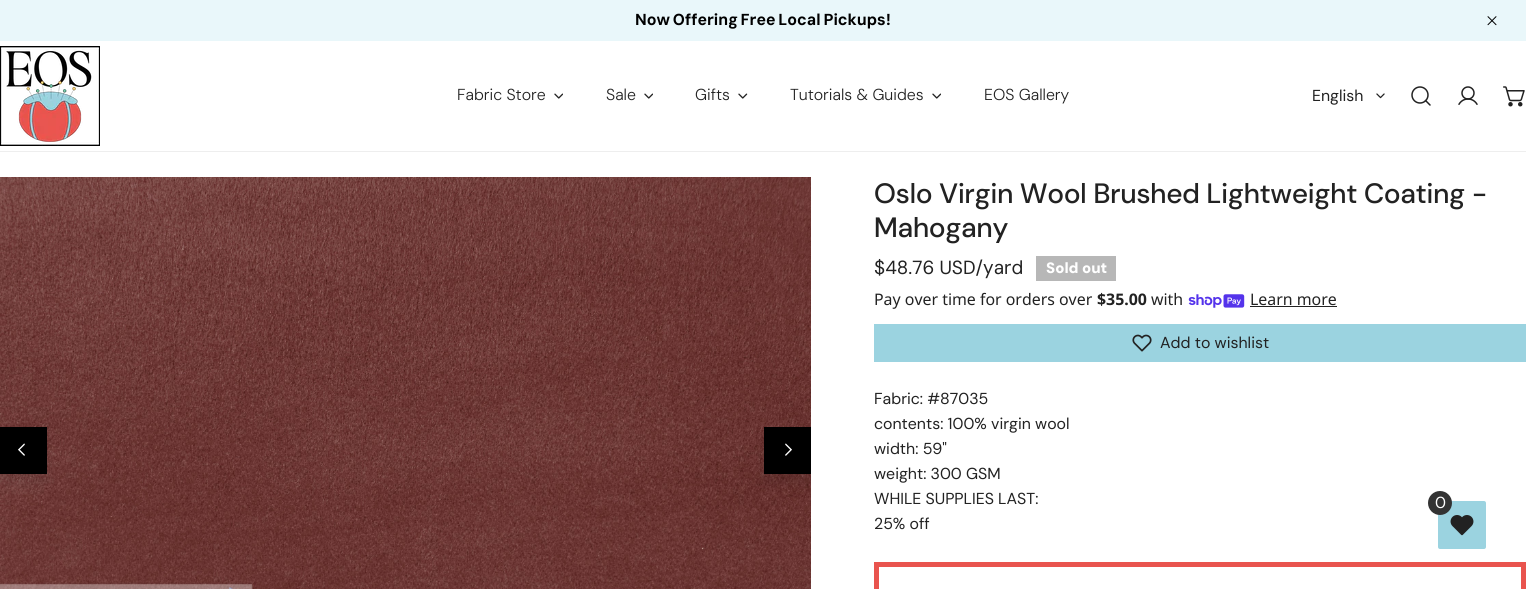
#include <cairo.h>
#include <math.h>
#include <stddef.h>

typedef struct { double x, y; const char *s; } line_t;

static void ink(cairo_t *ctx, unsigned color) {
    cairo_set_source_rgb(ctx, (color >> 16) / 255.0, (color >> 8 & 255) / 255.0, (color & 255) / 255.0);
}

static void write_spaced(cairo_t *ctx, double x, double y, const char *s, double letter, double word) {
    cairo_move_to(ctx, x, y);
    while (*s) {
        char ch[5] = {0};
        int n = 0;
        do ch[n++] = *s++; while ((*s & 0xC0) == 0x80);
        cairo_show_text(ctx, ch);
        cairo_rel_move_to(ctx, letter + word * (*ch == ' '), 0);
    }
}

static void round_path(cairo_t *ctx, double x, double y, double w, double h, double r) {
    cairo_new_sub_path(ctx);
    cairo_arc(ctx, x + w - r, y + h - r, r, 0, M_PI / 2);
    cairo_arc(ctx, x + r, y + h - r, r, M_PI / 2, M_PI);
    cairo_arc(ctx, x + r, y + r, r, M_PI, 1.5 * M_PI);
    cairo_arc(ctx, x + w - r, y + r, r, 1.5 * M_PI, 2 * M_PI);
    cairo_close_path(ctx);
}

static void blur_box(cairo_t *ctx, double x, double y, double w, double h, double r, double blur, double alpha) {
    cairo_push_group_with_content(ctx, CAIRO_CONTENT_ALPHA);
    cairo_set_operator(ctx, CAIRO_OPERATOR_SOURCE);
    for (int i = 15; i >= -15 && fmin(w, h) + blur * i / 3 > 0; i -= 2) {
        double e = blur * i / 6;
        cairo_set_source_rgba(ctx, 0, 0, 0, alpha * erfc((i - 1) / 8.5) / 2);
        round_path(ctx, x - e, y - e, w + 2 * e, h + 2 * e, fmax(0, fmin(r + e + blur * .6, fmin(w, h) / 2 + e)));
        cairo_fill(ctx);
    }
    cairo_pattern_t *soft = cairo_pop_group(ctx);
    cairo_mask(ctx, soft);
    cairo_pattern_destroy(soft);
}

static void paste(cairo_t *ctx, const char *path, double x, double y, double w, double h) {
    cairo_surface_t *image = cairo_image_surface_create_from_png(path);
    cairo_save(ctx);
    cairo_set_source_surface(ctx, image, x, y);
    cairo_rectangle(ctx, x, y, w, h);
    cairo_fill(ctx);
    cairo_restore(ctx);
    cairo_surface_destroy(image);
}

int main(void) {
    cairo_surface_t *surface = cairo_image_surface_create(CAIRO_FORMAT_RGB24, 1526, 589);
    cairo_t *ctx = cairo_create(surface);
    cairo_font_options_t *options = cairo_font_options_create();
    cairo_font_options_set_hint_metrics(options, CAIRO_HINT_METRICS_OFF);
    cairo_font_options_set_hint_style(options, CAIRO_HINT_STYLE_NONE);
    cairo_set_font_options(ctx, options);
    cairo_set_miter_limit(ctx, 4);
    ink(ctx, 0xFFFFFF);
    cairo_paint(ctx);
    ink(ctx, 0xE9F7FA);
    cairo_rectangle(ctx, 0, 0, 1526, 41);
    cairo_fill(ctx);
    cairo_select_font_face(ctx, "DM Sans", CAIRO_FONT_SLANT_NORMAL, CAIRO_FONT_WEIGHT_BOLD);
    cairo_set_font_size(ctx, 15.9);
    ink(ctx, 0x000000);
    write_spaced(ctx, 635, 25, "Now Offering Free Local Pickups!", 0, -1);
    paste(ctx, "media/1.png", 1487, 16, 10, 10);
    ink(ctx, 0xEEEEEE);
    cairo_rectangle(ctx, 0, 151, 1526, 1);
    cairo_fill(ctx);
    paste(ctx, "media/2.png", 0, 46, 100, 100);
    cairo_select_font_face(ctx, "DM Sans Light", CAIRO_FONT_SLANT_NORMAL, CAIRO_FONT_WEIGHT_NORMAL);
    ink(ctx, 0x222222);
    cairo_move_to(ctx, 457, 100);
    cairo_show_text(ctx, "Fabric Store");
    paste(ctx, "media/3.png", 554, 93, 9, 6);
    cairo_move_to(ctx, 606, 100);
    cairo_show_text(ctx, "Sale");
    paste(ctx, "media/3.png", 644, 93, 9, 6);
    cairo_move_to(ctx, 695, 100);
    cairo_show_text(ctx, "Gifts");
    paste(ctx, "media/4.png", 738, 93, 10, 6);
    cairo_move_to(ctx, 790, 100);
    cairo_show_text(ctx, "Tutorials & Guides");
    paste(ctx, "media/3.png", 932, 93, 9, 6);
    cairo_move_to(ctx, 984, 100);
    cairo_show_text(ctx, "EOS Gallery");
    cairo_select_font_face(ctx, "DM Sans", CAIRO_FONT_SLANT_NORMAL, CAIRO_FONT_WEIGHT_NORMAL);
    cairo_move_to(ctx, 1312, 101);
    cairo_show_text(ctx, "English");
    paste(ctx, "media/5.png", 1376, 93, 9, 6);
    cairo_arc(ctx, 1420, 95, 8, 0, 2 * M_PI);
    cairo_set_line_width(ctx, 1.5);
    cairo_stroke(ctx);
    cairo_new_path(ctx);
    cairo_move_to(ctx, 1430, 105);
    cairo_line_to(ctx, 1425.5, 100.5);
    cairo_set_line_cap(ctx, CAIRO_LINE_CAP_ROUND);
    cairo_set_line_join(ctx, CAIRO_LINE_JOIN_ROUND);
    cairo_stroke(ctx);
    paste(ctx, "media/6.png", 1458, 86, 20, 19);
    paste(ctx, "media/7.png", 1503, 86, 22, 21);
    paste(ctx, "media/8.png", 0, 177, 811, 412);
    ink(ctx, 0x222222);
    blur_box(ctx, 0, 436, 47, 47, 0, 5.5, 0.11);
    ink(ctx, 0x000000);
    cairo_rectangle(ctx, 0, 427, 47, 47);
    cairo_fill(ctx);
    paste(ctx, "media/9.png", 18, 443, 7, 13);
    cairo_save(ctx);
    cairo_rectangle(ctx, 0, 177, 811, 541);
    cairo_clip(ctx);
    ink(ctx, 0x222222);
    blur_box(ctx, 764, 436, 47, 47, 0, 5.5, 0.11);
    cairo_restore(ctx);
    cairo_rectangle(ctx, 764, 427, 47, 47);
    cairo_fill(ctx);
    paste(ctx, "media/10.png", 785, 443, 7, 13);
    cairo_select_font_face(ctx, "DM Sans Medium", CAIRO_FONT_SLANT_NORMAL, CAIRO_FONT_WEIGHT_NORMAL);
    cairo_set_font_size(ctx, 28);
    ink(ctx, 0x222222);
    cairo_move_to(ctx, 874, 203);
    cairo_show_text(ctx, "Oslo Virgin Wool Brushed Lightweight Coating -");
    cairo_move_to(ctx, 874, 237);
    cairo_show_text(ctx, "Mahogany");
    cairo_select_font_face(ctx, "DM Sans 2", CAIRO_FONT_SLANT_NORMAL, CAIRO_FONT_WEIGHT_NORMAL);
    cairo_set_font_size(ctx, 19);
    cairo_move_to(ctx, 874, 274);
    cairo_show_text(ctx, "$48.76 USD/yard");
    ink(ctx, 0xB7B7B7);
    cairo_rectangle(ctx, 1036, 256, 80, 25);
    cairo_fill(ctx);
    cairo_select_font_face(ctx, "DM Sans Black", CAIRO_FONT_SLANT_NORMAL, CAIRO_FONT_WEIGHT_NORMAL);
    cairo_set_font_size(ctx, 15);
    ink(ctx, 0xFFFFFF);
    cairo_move_to(ctx, 1046, 273);
    cairo_show_text(ctx, "Sold out");
    cairo_select_font_face(ctx, "Noto Sans", CAIRO_FONT_SLANT_NORMAL, CAIRO_FONT_WEIGHT_NORMAL);
    cairo_set_font_size(ctx, 15.9);
    ink(ctx, 0x222222);
    cairo_move_to(ctx, 874, 305);
    cairo_show_text(ctx, "Pay over time for orders over");
    cairo_select_font_face(ctx, "Noto Sans", CAIRO_FONT_SLANT_NORMAL, CAIRO_FONT_WEIGHT_BOLD);
    cairo_move_to(ctx, 1097, 305);
    cairo_show_text(ctx, "$35.00");
    cairo_select_font_face(ctx, "Noto Sans", CAIRO_FONT_SLANT_NORMAL, CAIRO_FONT_WEIGHT_NORMAL);
    cairo_move_to(ctx, 1151, 305);
    cairo_show_text(ctx, "with");
    paste(ctx, "media/11.png", 1188, 294, 57, 14);
    cairo_move_to(ctx, 1250, 305);
    cairo_show_text(ctx, "Learn more");
    cairo_rectangle(ctx, 1250, 306, 87, 1);
    cairo_fill(ctx);
    ink(ctx, 0x9BD3E0);
    cairo_rectangle(ctx, 874, 324, 652, 38);
    cairo_fill(ctx);
    paste(ctx, "media/12.png", 1132, 334, 20, 18);
    cairo_select_font_face(ctx, "DM Sans", CAIRO_FONT_SLANT_NORMAL, CAIRO_FONT_WEIGHT_NORMAL);
    ink(ctx, 0x222222);
    {
        static const line_t items[] = {
            {1160, 348, "Add to wishlist"},
            {874, 404, "Fabric: #87035"},
            {874, 429, "contents: 100% virgin wool"},
            {874, 454, "width: 59\""},
            {874, 479, "weight: 300 GSM"},
            {874, 504, "WHILE SUPPLIES LAST:"},
            {874, 529, "25% off"},
        };
        for (size_t i = 0; i < sizeof items / sizeof *items; i++) {
            cairo_move_to(ctx, items[i].x, items[i].y);
            cairo_show_text(ctx, items[i].s);
        }
    }
    cairo_rectangle(ctx, 876.5, 564.5, 647, 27);
    ink(ctx, 0xE9544E);
    cairo_set_line_width(ctx, 5);
    cairo_set_line_cap(ctx, CAIRO_LINE_CAP_BUTT);
    cairo_set_line_join(ctx, CAIRO_LINE_JOIN_MITER);
    cairo_stroke(ctx);
    ink(ctx, 0x9BD3E0);
    round_path(ctx, 1438, 501, 48, 48, 2);
    cairo_fill(ctx);
    ink(ctx, 0x333333);
    cairo_arc(ctx, 1440, 503, 12, 0, 2 * M_PI);
    cairo_fill(ctx);
    cairo_select_font_face(ctx, "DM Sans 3", CAIRO_FONT_SLANT_NORMAL, CAIRO_FONT_WEIGHT_NORMAL);
    cairo_set_font_size(ctx, 16);
    ink(ctx, 0xFFFFFF);
    cairo_move_to(ctx, 1435, 508);
    cairo_show_text(ctx, "0");
    paste(ctx, "media/13.png", 1450, 515, 24, 21);
    cairo_surface_write_to_png(surface, "image.png");
    cairo_font_options_destroy(options);
    cairo_destroy(ctx);
    cairo_surface_destroy(surface);
    return 0;
}
